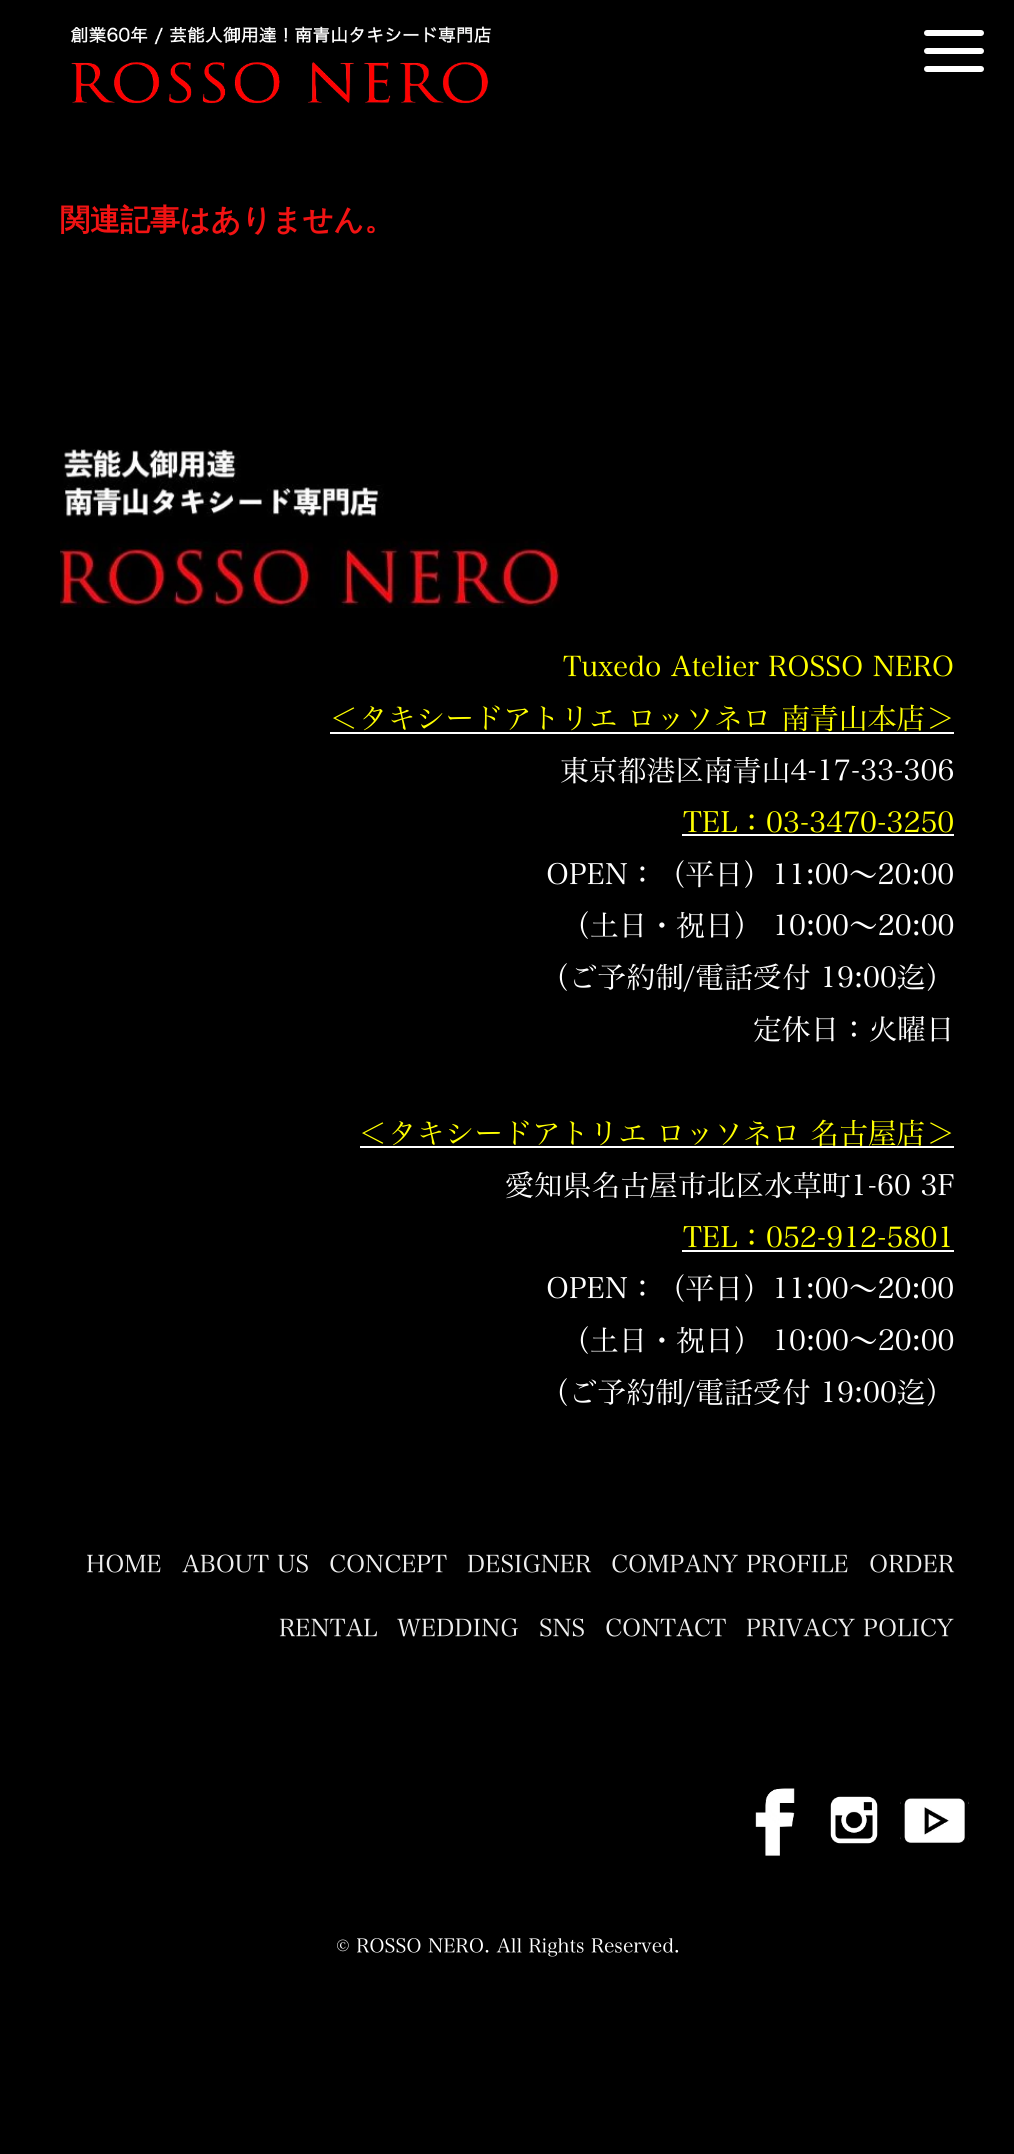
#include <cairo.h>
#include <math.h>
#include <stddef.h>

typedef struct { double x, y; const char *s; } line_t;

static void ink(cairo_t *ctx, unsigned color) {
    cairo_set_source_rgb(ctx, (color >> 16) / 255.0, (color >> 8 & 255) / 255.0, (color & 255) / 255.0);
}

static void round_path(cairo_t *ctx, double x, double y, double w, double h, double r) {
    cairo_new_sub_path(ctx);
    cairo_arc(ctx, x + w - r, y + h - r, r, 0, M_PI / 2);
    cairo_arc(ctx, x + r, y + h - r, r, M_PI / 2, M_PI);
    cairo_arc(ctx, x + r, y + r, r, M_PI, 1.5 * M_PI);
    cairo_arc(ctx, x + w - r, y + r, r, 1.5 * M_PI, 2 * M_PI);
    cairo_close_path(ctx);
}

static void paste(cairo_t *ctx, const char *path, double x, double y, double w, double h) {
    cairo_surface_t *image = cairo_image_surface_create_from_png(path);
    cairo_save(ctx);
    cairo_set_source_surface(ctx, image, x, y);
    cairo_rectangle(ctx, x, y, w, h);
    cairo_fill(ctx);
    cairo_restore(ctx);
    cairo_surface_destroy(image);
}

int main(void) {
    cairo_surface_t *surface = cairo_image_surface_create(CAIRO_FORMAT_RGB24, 1014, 2154);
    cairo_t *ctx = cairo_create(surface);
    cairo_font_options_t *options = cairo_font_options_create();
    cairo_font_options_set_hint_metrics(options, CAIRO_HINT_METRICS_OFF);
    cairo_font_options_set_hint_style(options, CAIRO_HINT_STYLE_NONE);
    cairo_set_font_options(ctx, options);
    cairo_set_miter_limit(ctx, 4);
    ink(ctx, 0x000000);
    cairo_paint(ctx);
    paste(ctx, "media/1.png", 70, 26, 421, 79);
    ink(ctx, 0xFFFFFF);
    round_path(ctx, 924, 30, 60, 6, 3);
    cairo_fill(ctx);
    round_path(ctx, 924, 48, 60, 6, 3);
    cairo_fill(ctx);
    round_path(ctx, 924, 66, 60, 6, 3);
    cairo_fill(ctx);
    cairo_select_font_face(ctx, "WenQuanYi Zen Hei", CAIRO_FONT_SLANT_NORMAL, CAIRO_FONT_WEIGHT_BOLD);
    cairo_set_font_size(ctx, 30);
    ink(ctx, 0xF21313);
    cairo_move_to(ctx, 60, 230);
    cairo_show_text(ctx, "関連記事はありません。");
    paste(ctx, "media/2.png", 60, 448, 500, 160);
    cairo_select_font_face(ctx, "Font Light", CAIRO_FONT_SLANT_NORMAL, CAIRO_FONT_WEIGHT_NORMAL);
    cairo_set_font_size(ctx, 28);
    ink(ctx, 0xFFFF00);
    cairo_move_to(ctx, 563, 677);
    cairo_show_text(ctx, "Tuxedo Atelier ROSSO NERO");
    cairo_set_font_size(ctx, 28.8);
    cairo_move_to(ctx, 330, 729);
    cairo_show_text(ctx, "＜タキシードアトリエ ロッソネロ 南青山本店＞");
    ink(ctx, 0xFFFFFF);
    cairo_rectangle(ctx, 330, 732, 624, 2);
    cairo_fill(ctx);
    cairo_move_to(ctx, 560, 781);
    cairo_show_text(ctx, "東京都港区南青山4-17-33-306");
    ink(ctx, 0xFFFF00);
    cairo_move_to(ctx, 683, 833);
    cairo_show_text(ctx, "TEL：03-3470-3250");
    ink(ctx, 0xFFFFFF);
    cairo_rectangle(ctx, 682, 834, 272, 2);
    cairo_fill(ctx);
    {
        static const line_t items[] = {
            {546, 885, "OPEN：（平日）11:00～20:00"},
            {561, 936, "（土日・祝日） 10:00〜20:00"},
            {540, 988, "（ご予約制/電話受付 19:00迄）"},
            {753, 1040, "定休日：火曜日"},
        };
        for (size_t i = 0; i < sizeof items / sizeof *items; i++) {
            cairo_move_to(ctx, items[i].x, items[i].y);
            cairo_show_text(ctx, items[i].s);
        }
    }
    cairo_rectangle(ctx, 360, 1146, 594, 2);
    cairo_fill(ctx);
    ink(ctx, 0xFFFF00);
    cairo_move_to(ctx, 359, 1144);
    cairo_show_text(ctx, "＜タキシードアトリエ ロッソネロ 名古屋店＞");
    ink(ctx, 0xFFFFFF);
    cairo_move_to(ctx, 505, 1196);
    cairo_show_text(ctx, "愛知県名古屋市北区水草町1-60 3F");
    ink(ctx, 0xFFFF00);
    cairo_move_to(ctx, 683, 1248);
    cairo_show_text(ctx, "TEL：052-912-5801");
    ink(ctx, 0xFFFFFF);
    cairo_rectangle(ctx, 682, 1250, 272, 2);
    cairo_fill(ctx);
    {
        static const line_t items[] = {
            {546, 1299, "OPEN：（平日）11:00～20:00"},
            {561, 1351, "（土日・祝日） 10:00〜20:00"},
            {540, 1403, "（ご予約制/電話受付 19:00迄）"},
        };
        for (size_t i = 0; i < sizeof items / sizeof *items; i++) {
            cairo_move_to(ctx, items[i].x, items[i].y);
            cairo_show_text(ctx, items[i].s);
        }
    }
    cairo_set_font_size(ctx, 24);
    ink(ctx, 0xEEEEEE);
    {
        static const line_t items[] = {
            {86, 1573, "HOME"},
            {182, 1573, "ABOUT US"},
            {329, 1573, "CONCEPT"},
            {467, 1573, "DESIGNER"},
            {611, 1573, "COMPANY PROFILE"},
            {869, 1573, "ORDER"},
            {279, 1637, "RENTAL"},
            {397, 1637, "WEDDING"},
            {539, 1637, "SNS"},
            {605, 1637, "CONTACT"},
            {746, 1637, "PRIVACY POLICY"},
        };
        for (size_t i = 0; i < sizeof items / sizeof *items; i++) {
            cairo_move_to(ctx, items[i].x, items[i].y);
            cairo_show_text(ctx, items[i].s);
        }
    }
    paste(ctx, "media/3.png", 755, 1788, 40, 68);
    paste(ctx, "media/4.png", 830, 1796, 48, 48);
    paste(ctx, "media/5.png", 900, 1798, 69, 45);
    cairo_set_font_size(ctx, 19.25);
    ink(ctx, 0xFFFFFF);
    cairo_move_to(ctx, 336, 1953);
    cairo_show_text(ctx, "© ROSSO NERO. All Rights Reserved.");
    cairo_surface_write_to_png(surface, "image.png");
    cairo_font_options_destroy(options);
    cairo_destroy(ctx);
    cairo_surface_destroy(surface);
    return 0;
}
